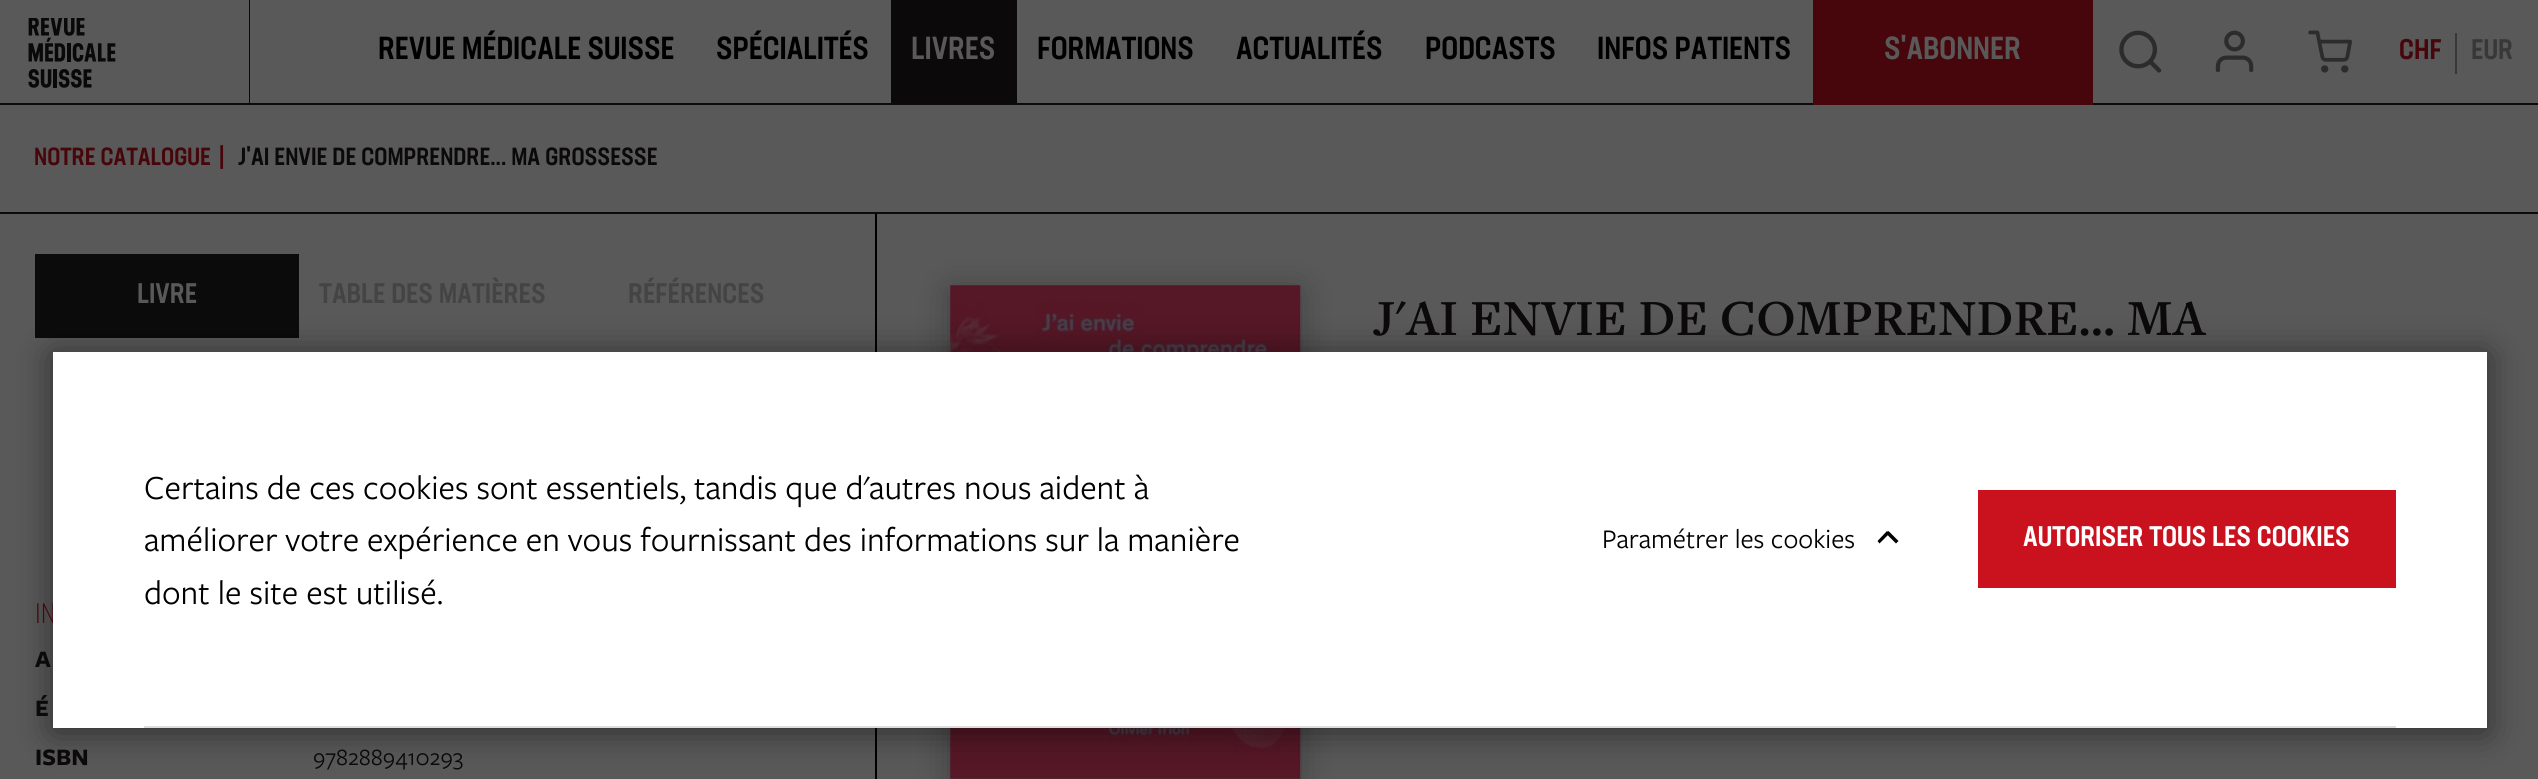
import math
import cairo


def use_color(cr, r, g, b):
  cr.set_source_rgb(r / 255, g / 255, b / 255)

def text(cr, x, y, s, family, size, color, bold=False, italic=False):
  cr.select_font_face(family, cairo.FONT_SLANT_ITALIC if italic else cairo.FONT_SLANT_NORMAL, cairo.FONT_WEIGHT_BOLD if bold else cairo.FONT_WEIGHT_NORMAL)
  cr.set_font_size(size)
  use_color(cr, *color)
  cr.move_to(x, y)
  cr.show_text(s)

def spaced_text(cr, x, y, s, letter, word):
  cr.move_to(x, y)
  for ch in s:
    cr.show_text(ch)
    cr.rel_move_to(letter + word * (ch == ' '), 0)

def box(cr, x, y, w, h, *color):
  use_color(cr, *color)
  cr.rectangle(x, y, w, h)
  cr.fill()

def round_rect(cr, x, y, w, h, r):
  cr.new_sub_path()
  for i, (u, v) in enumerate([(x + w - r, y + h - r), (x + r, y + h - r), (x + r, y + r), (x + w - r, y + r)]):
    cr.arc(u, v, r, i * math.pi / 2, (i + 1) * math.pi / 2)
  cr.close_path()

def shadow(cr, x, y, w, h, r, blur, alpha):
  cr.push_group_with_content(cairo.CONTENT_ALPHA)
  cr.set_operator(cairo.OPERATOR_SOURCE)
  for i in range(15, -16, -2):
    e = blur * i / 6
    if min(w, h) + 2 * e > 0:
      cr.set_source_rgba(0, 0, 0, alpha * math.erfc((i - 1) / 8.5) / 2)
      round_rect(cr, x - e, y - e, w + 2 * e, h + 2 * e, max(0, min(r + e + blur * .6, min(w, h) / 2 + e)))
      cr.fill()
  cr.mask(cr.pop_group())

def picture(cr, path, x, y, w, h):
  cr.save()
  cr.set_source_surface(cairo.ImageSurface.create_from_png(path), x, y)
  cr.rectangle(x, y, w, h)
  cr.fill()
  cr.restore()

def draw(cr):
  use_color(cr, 89, 89, 89)
  cr.paint()
  box(cr, 249, 0, 1, 105, 11, 11, 11)
  picture(cr, "img_01.png", 28, 18, 88, 70)
  box(cr, 891, 0, 126, 103, 11, 9, 10)
  box(cr, 0, 103, 2538, 2, 11, 11, 11)
  box(cr, 1813, 0, 280, 105, 71, 6, 11)
  picture(cr, "img_02.png", 2119, 30, 43, 43)
  picture(cr, "img_03.png", 2215, 30, 39, 43)
  picture(cr, "img_04.png", 2308, 30, 44, 43)
  box(cr, 2455, 33, 2, 41, 56, 56, 56)
  box(cr, 875, 212, 2, 567, 0, 0, 0)
  box(cr, 0, 212, 2538, 2, 11, 11, 11)
  box(cr, 35, 254, 264, 84, 11, 11, 11)
  use_color(cr, 0, 0, 0)
  shadow(cr, 950, 291, 350, 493, 0, 17.5, 0.29)
  picture(cr, "img_05.png", 950, 285, 351, 494)
  shadow(cr, 53, 355, 2434, 377, 0, 17.5, 0.5)
  text(cr, 378, 59, "REVUE MÉDICALE SUISSE", "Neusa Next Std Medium", 31.5, (0, 0, 0))
  text(cr, 716, 59, "SPÉCIALITÉS", "Neusa Next Std Medium", 31.5, (0, 0, 0))
  text(cr, 911, 59, "LIVRES", "Neusa Next Std Medium", 31.5, (89, 89, 89))
  text(cr, 1037, 59, "FORMATIONS", "Neusa Next Std Medium", 31.5, (0, 0, 0))
  text(cr, 1236, 59, "ACTUALITÉS", "Neusa Next Std Medium", 31.5, (0, 0, 0))
  text(cr, 1425, 59, "PODCASTS", "Neusa Next Std Medium", 31.5, (0, 0, 0))
  text(cr, 1597, 59, "INFOS PATIENTS", "Neusa Next Std Medium", 31.5, (0, 0, 0))
  text(cr, 1884, 59, "S'ABONNER", "Neusa Next Std Medium", 31.5, (89, 89, 89))
  text(cr, 2399, 59, "CHF", "Neusa Next Std Medium", 28, (71, 6, 11))
  text(cr, 2471, 59, "EUR", "Neusa Next Std Medium", 28, (56, 56, 56))
  text(cr, 34, 165, "NOTRE CATALOGUE", "Neusa Next Std Medium", 24.5, (71, 6, 11))
  text(cr, 219, 165, "|", "Neusa Next Std Medium", 24.5, (71, 6, 11))
  text(cr, 238, 165, "J'AI ENVIE DE COMPRENDRE... MA GROSSESSE", "Neusa Next Std Medium", 24.5, (11, 9, 10))
  text(cr, 137, 303, "LIVRE", "Neusa Next Std Medium", 28, (89, 89, 89))
  text(cr, 319, 303, "TABLE DES MATIÈRES", "Neusa Next Std Medium", 28, (68, 68, 69))
  text(cr, 628, 303, "RÉFÉRENCES", "Neusa Next Std Medium", 28, (68, 68, 69))
  text(cr, 35, 623, "IN", "Neusa Next Std Light", 28, (71, 6, 11))
  text(cr, 35, 667, "A", "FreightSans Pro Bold", 24.5, (11, 9, 10), bold=True)
  text(cr, 35, 716, "É", "FreightSans Pro Bold", 24.5, (11, 9, 10), bold=True)
  text(cr, 35, 765, "ISBN", "FreightSans Pro Bold", 24.5, (11, 9, 10), bold=True)
  text(cr, 313, 765, "9782889410293", "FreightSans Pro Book", 24.5, (11, 9, 10))
  text(cr, 1373, 335, "J'AI ENVIE DE COMPRENDRE... MA", "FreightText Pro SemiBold", 52.5, (11, 9, 10))
  box(cr, 53, 352, 2434, 376, 255, 255, 255)
  box(cr, 144, 726, 2252, 2, 221, 221, 221)
  text(cr, 144, 499, "Certains de ces cookies sont essentiels, tandis que d'autres nous aident à", "FreightSans Pro Book", 35, (0, 0, 0))
  spaced_text(cr, 144, 551, "améliorer votre expérience en vous fournissant des informations sur la manière", 0, -0.1)
  text(cr, 144, 604, "dont le site est utilisé.", "FreightSans Pro Book", 35, (0, 0, 0))
  text(cr, 1602, 548, "Paramétrer les cookies", "FreightSans Pro Book", 28, (0, 0, 0))
  cr.new_path()
  cr.move_to(1888.5, 531)
  cr.line_to(1898.5, 541)
  cr.line_to(1896, 543.5)
  cr.line_to(1886, 533.5)
  cr.close_path()
  cr.fill()
  cr.new_path()
  cr.move_to(1877.5, 541)
  cr.line_to(1887, 531)
  cr.line_to(1889.5, 533.5)
  cr.line_to(1879.5, 543.5)
  cr.close_path()
  cr.fill()
  box(cr, 1978, 490, 418, 98, 202, 18, 30)
  text(cr, 2023, 546, "AUTORISER TOUS LES COOKIES", "Neusa Next Std Medium", 28, (255, 255, 255))


surface = cairo.ImageSurface(cairo.FORMAT_RGB24, 2538, 779)
cr = cairo.Context(surface)
options = cairo.FontOptions()
options.set_hint_metrics(cairo.HINT_METRICS_OFF)
options.set_hint_style(cairo.HINT_STYLE_NONE)
cr.set_font_options(options)
cr.set_miter_limit(4)
draw(cr)
surface.write_to_png("out.png")
